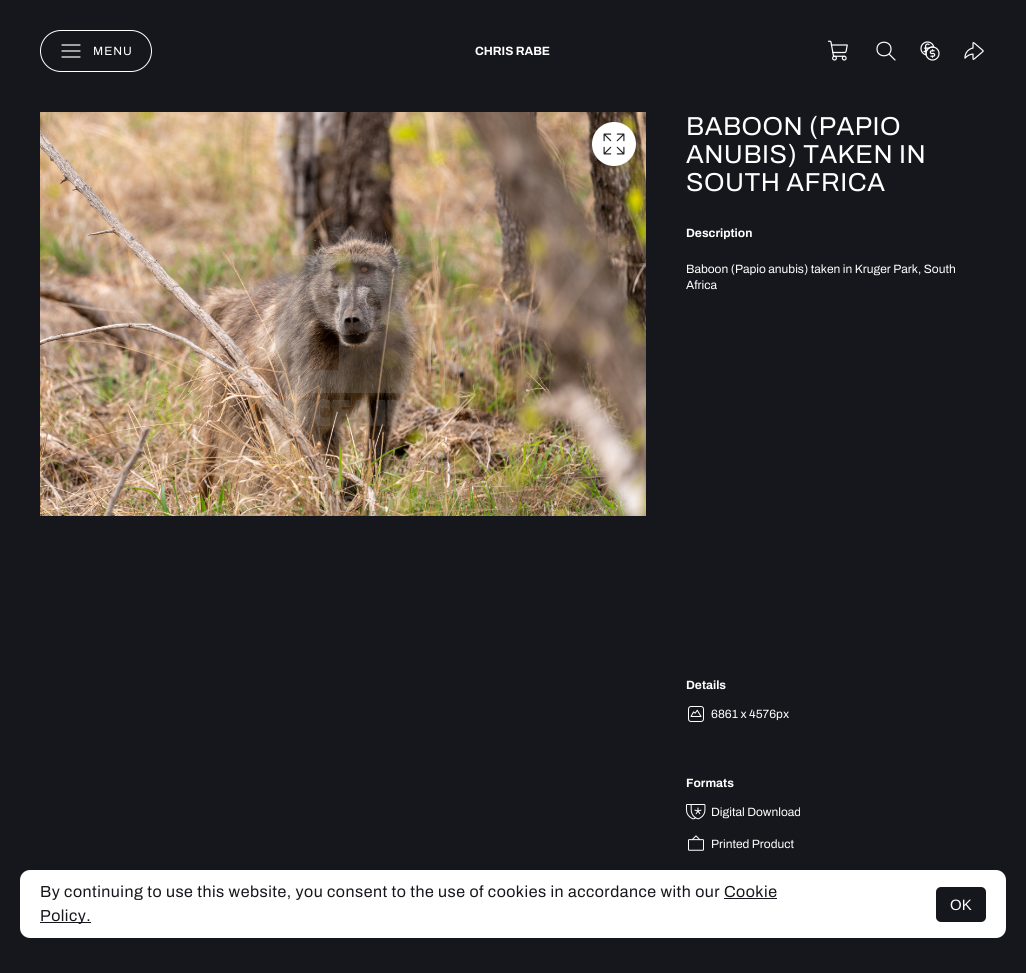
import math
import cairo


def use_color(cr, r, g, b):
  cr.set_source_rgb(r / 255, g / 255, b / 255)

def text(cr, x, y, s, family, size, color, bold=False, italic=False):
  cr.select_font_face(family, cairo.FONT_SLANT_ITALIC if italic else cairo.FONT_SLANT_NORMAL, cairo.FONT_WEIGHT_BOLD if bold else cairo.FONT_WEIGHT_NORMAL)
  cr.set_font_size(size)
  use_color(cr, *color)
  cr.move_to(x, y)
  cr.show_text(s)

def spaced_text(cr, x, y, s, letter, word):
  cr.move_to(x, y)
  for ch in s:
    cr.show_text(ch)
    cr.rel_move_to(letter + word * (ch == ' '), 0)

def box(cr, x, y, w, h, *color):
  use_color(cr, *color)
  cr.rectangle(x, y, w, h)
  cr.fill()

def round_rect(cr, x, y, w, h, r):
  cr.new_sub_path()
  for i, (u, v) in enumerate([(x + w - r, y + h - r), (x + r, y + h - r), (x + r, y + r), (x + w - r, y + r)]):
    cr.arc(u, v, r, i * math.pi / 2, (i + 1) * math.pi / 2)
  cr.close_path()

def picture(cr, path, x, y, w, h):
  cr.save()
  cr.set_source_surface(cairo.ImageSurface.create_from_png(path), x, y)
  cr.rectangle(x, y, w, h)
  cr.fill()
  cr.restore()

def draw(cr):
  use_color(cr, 22, 22, 29)
  cr.paint()
  round_rect(cr, 40.5, 30.5, 111, 41, 20.5)
  use_color(cr, 255, 255, 255)
  cr.set_line_width(1)
  cr.stroke()
  cr.new_path()
  cr.move_to(62, 51)
  cr.line_to(80, 51)
  cr.move_to(62, 45)
  cr.line_to(80, 45)
  cr.move_to(62, 57)
  cr.line_to(80, 57)
  cr.set_line_width(1.2)
  cr.set_line_cap(cairo.LINE_CAP_ROUND)
  cr.set_line_join(cairo.LINE_JOIN_ROUND)
  cr.stroke()
  picture(cr, "img_01.png", 827, 40, 21, 21)
  cr.new_path()
  cr.move_to(895, 60)
  cr.line_to(889, 54)
  cr.move_to(891, 49)
  cr.curve_to(891, 58, 877, 58, 877, 49)
  cr.curve_to(877, 40, 891, 40, 891, 49)
  cr.close_path()
  cr.stroke()
  picture(cr, "img_02.png", 920, 41, 20, 20)
  picture(cr, "img_03.png", 964, 42, 20, 18)
  picture(cr, "img_04.png", 40, 112, 606, 404)
  cr.arc(614, 144, 22, 0, 2 * math.pi)
  cr.fill()
  picture(cr, "img_05.png", 603, 133, 22, 22)
  picture(cr, "img_06.png", 688, 706, 16, 16)
  picture(cr, "img_07.png", 686, 804, 20, 16)
  picture(cr, "img_08.png", 688, 835, 16, 16)
  round_rect(cr, 20, 870, 986, 68, 10)
  cr.fill()
  box(cr, 724, 898, 53, 1, 22, 22, 29)
  box(cr, 40, 922, 51, 1, 22, 22, 29)
  round_rect(cr, 936, 887, 50, 35, 5)
  cr.fill()
  cr.select_font_face("Archivo")
  cr.set_font_size(12)
  use_color(cr, 255, 255, 255)
  spaced_text(cr, 93, 55, "MENU", 1, 0)
  text(cr, 475, 55, "CHRIS RABE", "Archivo", 12, (255, 255, 255), bold=True)
  cr.select_font_face("Archivo")
  cr.set_font_size(26)
  spaced_text(cr, 686, 135, "BABOON (PAPIO", 0.5, 0)
  spaced_text(cr, 686, 163, "ANUBIS) TAKEN IN", 0.5, 0)
  spaced_text(cr, 686, 191, "SOUTH AFRICA", 0.5, 0)
  text(cr, 686, 237, "Description", "Archivo", 12, (255, 255, 255), bold=True)
  text(cr, 686, 273, "Baboon (Papio anubis) taken in Kruger Park, South", "Archivo", 12, (255, 255, 255))
  text(cr, 686, 289, "Africa", "Archivo", 12, (255, 255, 255))
  text(cr, 686, 689, "Details", "Archivo", 12, (255, 255, 255), bold=True)
  text(cr, 711, 718, "6861 x 4576px", "Archivo", 12, (255, 255, 255))
  text(cr, 686, 787, "Formats", "Archivo", 12, (255, 255, 255), bold=True)
  text(cr, 711, 816, "Digital Download", "Archivo", 12, (255, 255, 255))
  text(cr, 711, 848, "Printed Product", "Archivo", 12, (255, 255, 255))
  cr.set_font_size(16)
  use_color(cr, 22, 22, 29)
  spaced_text(cr, 40, 897, "By continuing to use this website, you consent to the use of cookies in accordance with our Cookie", 0.5, 0)
  spaced_text(cr, 40, 921, "Policy.", 0.5, 0)
  text(cr, 950, 910, "OK", "Liberation Sans", 15, (255, 255, 255))


surface = cairo.ImageSurface(cairo.FORMAT_RGB24, 1026, 973)
cr = cairo.Context(surface)
options = cairo.FontOptions()
options.set_hint_metrics(cairo.HINT_METRICS_OFF)
options.set_hint_style(cairo.HINT_STYLE_NONE)
cr.set_font_options(options)
cr.set_miter_limit(4)
draw(cr)
surface.write_to_png("out.png")
